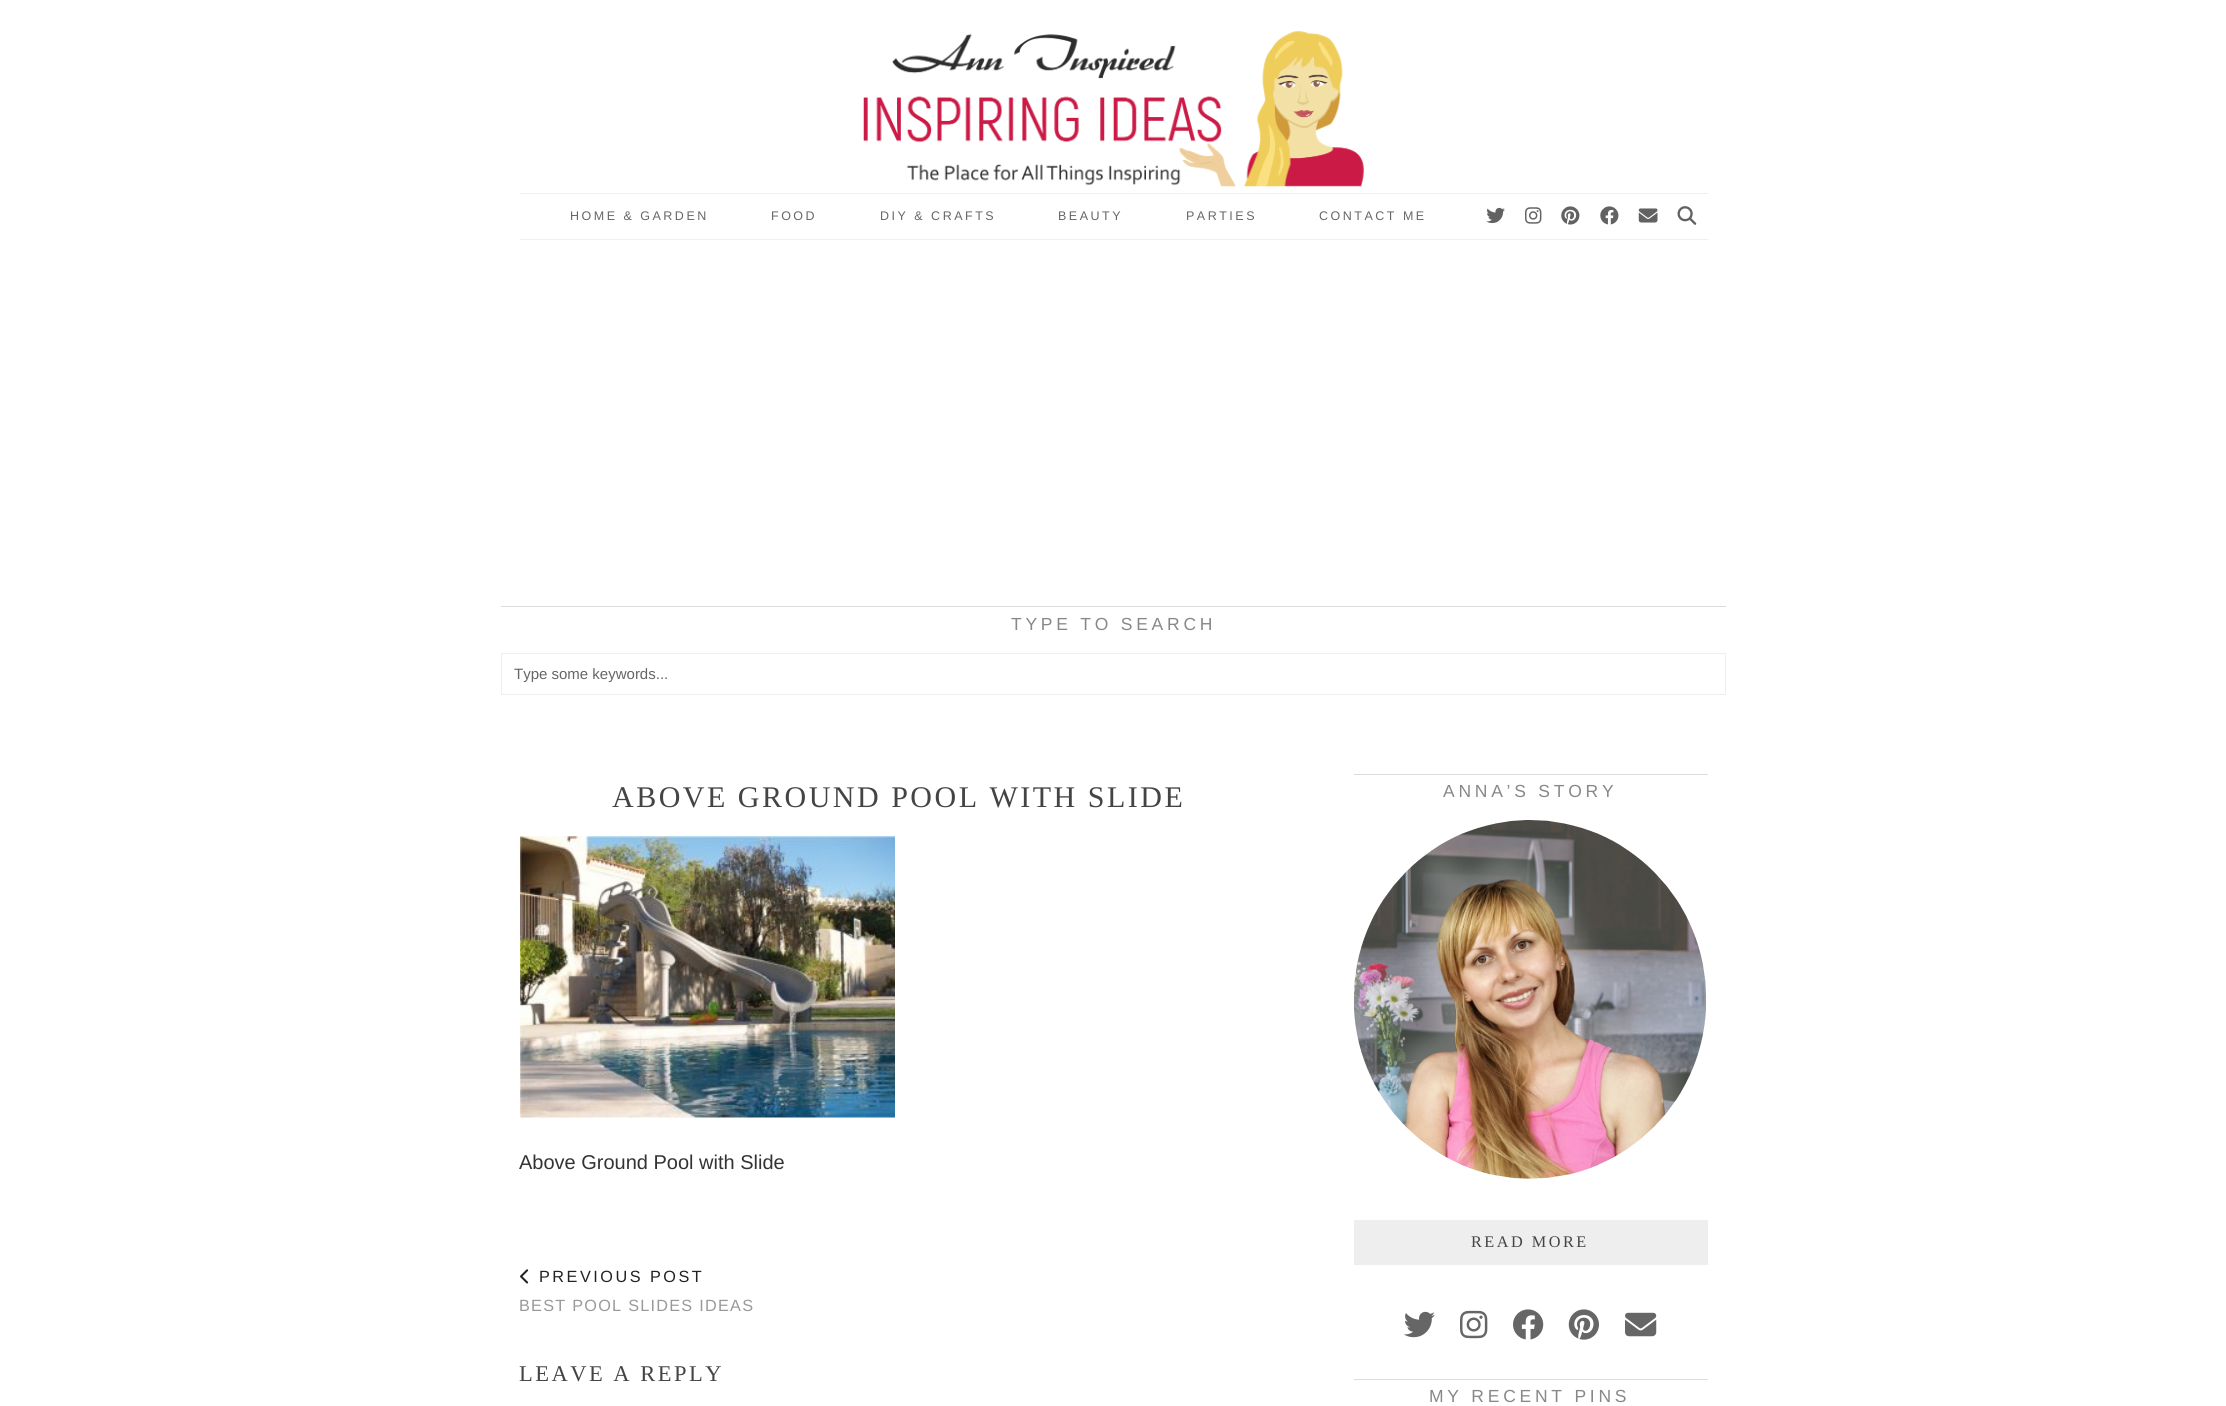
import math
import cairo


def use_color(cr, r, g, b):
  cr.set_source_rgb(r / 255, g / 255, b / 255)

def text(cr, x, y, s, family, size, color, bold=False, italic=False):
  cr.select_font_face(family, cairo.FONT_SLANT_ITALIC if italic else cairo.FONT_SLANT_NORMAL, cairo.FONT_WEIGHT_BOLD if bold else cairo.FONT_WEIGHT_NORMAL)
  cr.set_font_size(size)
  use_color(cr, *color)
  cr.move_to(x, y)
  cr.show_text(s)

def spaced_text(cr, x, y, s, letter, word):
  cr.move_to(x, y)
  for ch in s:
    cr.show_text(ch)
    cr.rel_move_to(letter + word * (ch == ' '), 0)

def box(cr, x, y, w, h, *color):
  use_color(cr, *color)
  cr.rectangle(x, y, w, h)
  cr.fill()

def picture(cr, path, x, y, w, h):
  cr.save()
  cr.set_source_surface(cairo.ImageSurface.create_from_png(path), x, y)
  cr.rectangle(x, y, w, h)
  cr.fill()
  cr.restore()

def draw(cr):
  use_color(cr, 255, 255, 255)
  cr.paint()
  picture(cr, "img_01.png", 863, 31, 501, 156)
  box(cr, 520, 193, 1188, 1, 239, 239, 239)
  box(cr, 520, 239, 1188, 1, 239, 239, 239)
  picture(cr, "img_02.png", 1486, 207, 19, 17)
  picture(cr, "img_03.png", 1525, 207, 17, 17)
  picture(cr, "img_04.png", 1561, 206, 19, 19)
  picture(cr, "img_05.png", 1600, 206, 19, 19)
  picture(cr, "img_06.png", 1638, 208, 20, 15)
  picture(cr, "img_07.png", 1677, 206, 20, 19)
  box(cr, 501, 606, 1225, 1, 221, 221, 221)
  cr.rectangle(501.5, 653.5, 1224, 41)
  use_color(cr, 238, 238, 238)
  cr.set_line_width(1)
  cr.stroke()
  picture(cr, "img_08.png", 520, 836, 375, 282)
  picture(cr, "img_09.png", 520, 1269, 9, 15)
  box(cr, 1354, 774, 354, 1, 221, 221, 221)
  picture(cr, "img_10.png", 1353, 820, 354, 359)
  box(cr, 1354, 1220, 354, 45, 238, 238, 238)
  picture(cr, "img_11.png", 1404, 1311, 31, 27)
  picture(cr, "img_12.png", 1460, 1310, 28, 29)
  picture(cr, "img_13.png", 1513, 1309, 31, 31)
  picture(cr, "img_14.png", 1568, 1309, 31, 31)
  picture(cr, "img_15.png", 1625, 1312, 32, 25)
  box(cr, 1354, 1379, 354, 1, 221, 221, 221)
  cr.select_font_face("Liberation Sans")
  cr.set_font_size(12.5)
  use_color(cr, 102, 102, 102)
  spaced_text(cr, 570, 220, "HOME & GARDEN", 2.5, 0)
  spaced_text(cr, 771, 220, "FOOD", 2.5, 0)
  spaced_text(cr, 880, 220, "DIY & CRAFTS", 2.5, 0)
  spaced_text(cr, 1058, 220, "BEAUTY", 2.5, 0)
  spaced_text(cr, 1186, 220, "PARTIES", 2.5, 0)
  spaced_text(cr, 1319, 220, "CONTACT ME", 2.5, 0)
  cr.set_font_size(17.5)
  use_color(cr, 136, 136, 136)
  spaced_text(cr, 1011, 630, "TYPE TO SEARCH", 3.75, 0)
  text(cr, 514, 679, "Type some keywords...", "Liberation Sans", 15, (102, 102, 102))
  cr.select_font_face("Liberation Serif")
  cr.set_font_size(30)
  use_color(cr, 68, 68, 68)
  spaced_text(cr, 612, 807, "ABOVE GROUND POOL WITH SLIDE", 2.5, 0)
  text(cr, 519, 1169, "Above Ground Pool with Slide", "Liberation Sans", 20, (51, 51, 51))
  cr.set_font_size(16.25)
  use_color(cr, 34, 34, 34)
  spaced_text(cr, 539, 1282, "PREVIOUS POST", 2.5, 0)
  use_color(cr, 153, 153, 153)
  spaced_text(cr, 519, 1311, "BEST POOL SLIDES IDEAS", 1.25, 0)
  cr.select_font_face("Liberation Serif")
  cr.set_font_size(22.5)
  use_color(cr, 68, 68, 68)
  spaced_text(cr, 519, 1381, "LEAVE A REPLY", 2.5, 0)
  cr.select_font_face("Liberation Sans")
  cr.set_font_size(17.5)
  use_color(cr, 136, 136, 136)
  spaced_text(cr, 1443, 797, "ANNA’S STORY", 3.75, 0)
  cr.select_font_face("Liberation Serif")
  cr.set_font_size(16.25)
  use_color(cr, 68, 68, 68)
  spaced_text(cr, 1471, 1247, "READ MORE", 2.5, 0)
  cr.select_font_face("Liberation Sans")
  cr.set_font_size(17.5)
  use_color(cr, 136, 136, 136)
  spaced_text(cr, 1429, 1402, "MY RECENT PINS", 3.75, 0)


surface = cairo.ImageSurface(cairo.FORMAT_RGB24, 2226, 1406)
cr = cairo.Context(surface)
options = cairo.FontOptions()
options.set_hint_metrics(cairo.HINT_METRICS_OFF)
options.set_hint_style(cairo.HINT_STYLE_NONE)
cr.set_font_options(options)
cr.set_miter_limit(4)
draw(cr)
surface.write_to_png("out.png")
